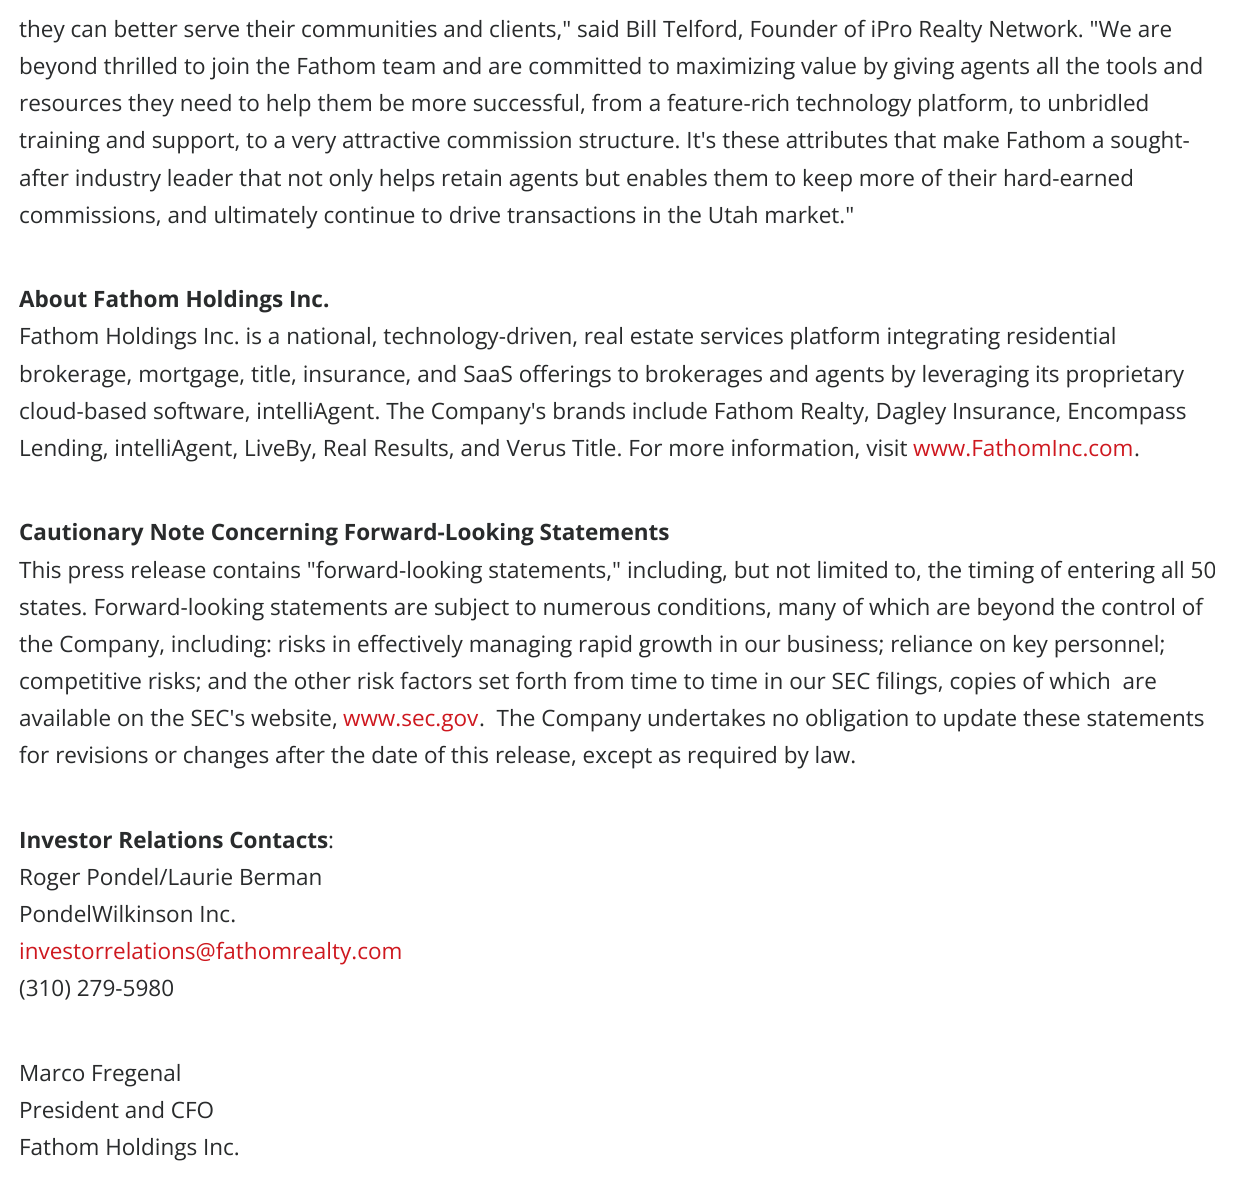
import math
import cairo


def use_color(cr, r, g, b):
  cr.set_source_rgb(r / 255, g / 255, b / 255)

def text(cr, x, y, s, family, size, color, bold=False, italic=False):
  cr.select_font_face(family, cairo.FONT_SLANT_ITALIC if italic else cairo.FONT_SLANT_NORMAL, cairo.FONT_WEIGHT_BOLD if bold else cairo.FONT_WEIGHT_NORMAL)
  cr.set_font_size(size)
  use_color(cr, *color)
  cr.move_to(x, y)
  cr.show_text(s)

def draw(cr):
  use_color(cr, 255, 255, 255)
  cr.paint()
  text(cr, 19, 37, "they can better serve their communities and clients,\" said Bill Telford, Founder of iPro Realty Network. \"We are", "Open Sans", 22.5, (41, 43, 44))
  text(cr, 19, 74, "beyond thrilled to join the Fathom team and are committed to maximizing value by giving agents all the tools and", "Open Sans", 22.5, (41, 43, 44))
  text(cr, 19, 111, "resources they need to help them be more successful, from a feature-rich technology platform, to unbridled", "Open Sans", 22.5, (41, 43, 44))
  text(cr, 19, 148, "training and support, to a very attractive commission structure. It's these attributes that make Fathom a sought-", "Open Sans", 22.5, (41, 43, 44))
  text(cr, 19, 186, "after industry leader that not only helps retain agents but enables them to keep more of their hard-earned", "Open Sans", 22.5, (41, 43, 44))
  text(cr, 19, 223, "commissions, and ultimately continue to drive transactions in the Utah market.\"", "Open Sans", 22.5, (41, 43, 44))
  text(cr, 19, 307, "About Fathom Holdings Inc.", "Open Sans", 22.5, (41, 43, 44), bold=True)
  text(cr, 19, 344, "Fathom Holdings Inc. is a national, technology-driven, real estate services platform integrating residential", "Open Sans", 22.5, (41, 43, 44))
  text(cr, 19, 382, "brokerage, mortgage, title, insurance, and SaaS offerings to brokerages and agents by leveraging its proprietary", "Open Sans", 22.5, (41, 43, 44))
  text(cr, 19, 419, "cloud-based software, intelliAgent. The Company's brands include Fathom Realty, Dagley Insurance, Encompass", "Open Sans", 22.5, (41, 43, 44))
  text(cr, 19, 456, "Lending, intelliAgent, LiveBy, Real Results, and Verus Title. For more information, visit", "Open Sans", 22.5, (41, 43, 44))
  text(cr, 913, 456, "www.FathomInc.com", "Open Sans", 22.5, (206, 24, 31))
  text(cr, 1134, 456, ".", "Open Sans", 22.5, (41, 43, 44))
  text(cr, 19, 540, "Cautionary Note Concerning Forward-Looking Statements", "Open Sans", 22.5, (41, 43, 44), bold=True)
  text(cr, 19, 578, "This press release contains \"forward-looking statements,\" including, but not limited to, the timing of entering all 50", "Open Sans", 22.5, (41, 43, 44))
  text(cr, 19, 615, "states. Forward-looking statements are subject to numerous conditions, many of which are beyond the control of", "Open Sans", 22.5, (41, 43, 44))
  text(cr, 19, 652, "the Company, including: risks in effectively managing rapid growth in our business; reliance on key personnel;", "Open Sans", 22.5, (41, 43, 44))
  text(cr, 19, 689, "competitive risks; and the other risk factors set forth from time to time in our SEC filings, copies of which  are", "Open Sans", 22.5, (41, 43, 44))
  text(cr, 19, 726, "available on the SEC's website,", "Open Sans", 22.5, (41, 43, 44))
  text(cr, 343, 726, "www.sec.gov", "Open Sans", 22.5, (206, 24, 31))
  text(cr, 479, 726, ".  The Company undertakes no obligation to update these statements", "Open Sans", 22.5, (41, 43, 44))
  text(cr, 19, 763, "for revisions or changes after the date of this release, except as required by law.", "Open Sans", 22.5, (41, 43, 44))
  text(cr, 19, 848, "Investor Relations Contacts", "Open Sans", 22.5, (41, 43, 44), bold=True)
  text(cr, 328, 848, ":", "Open Sans", 22.5, (41, 43, 44))
  text(cr, 19, 885, "Roger Pondel/Laurie Berman", "Open Sans", 22.5, (41, 43, 44))
  text(cr, 19, 922, "PondelWilkinson Inc.", "Open Sans", 22.5, (41, 43, 44))
  text(cr, 19, 959, "investorrelations@fathomrealty.com", "Open Sans", 22.5, (206, 24, 31))
  text(cr, 19, 996, "(310) 279-5980", "Open Sans", 22.5, (41, 43, 44))
  text(cr, 19, 1081, "Marco Fregenal", "Open Sans", 22.5, (41, 43, 44))
  text(cr, 19, 1118, "President and CFO", "Open Sans", 22.5, (41, 43, 44))
  text(cr, 19, 1155, "Fathom Holdings Inc.", "Open Sans", 22.5, (41, 43, 44))


surface = cairo.ImageSurface(cairo.FORMAT_RGB24, 1236, 1186)
cr = cairo.Context(surface)
options = cairo.FontOptions()
options.set_hint_metrics(cairo.HINT_METRICS_OFF)
options.set_hint_style(cairo.HINT_STYLE_NONE)
cr.set_font_options(options)
cr.set_miter_limit(4)
draw(cr)
surface.write_to_png("out.png")
